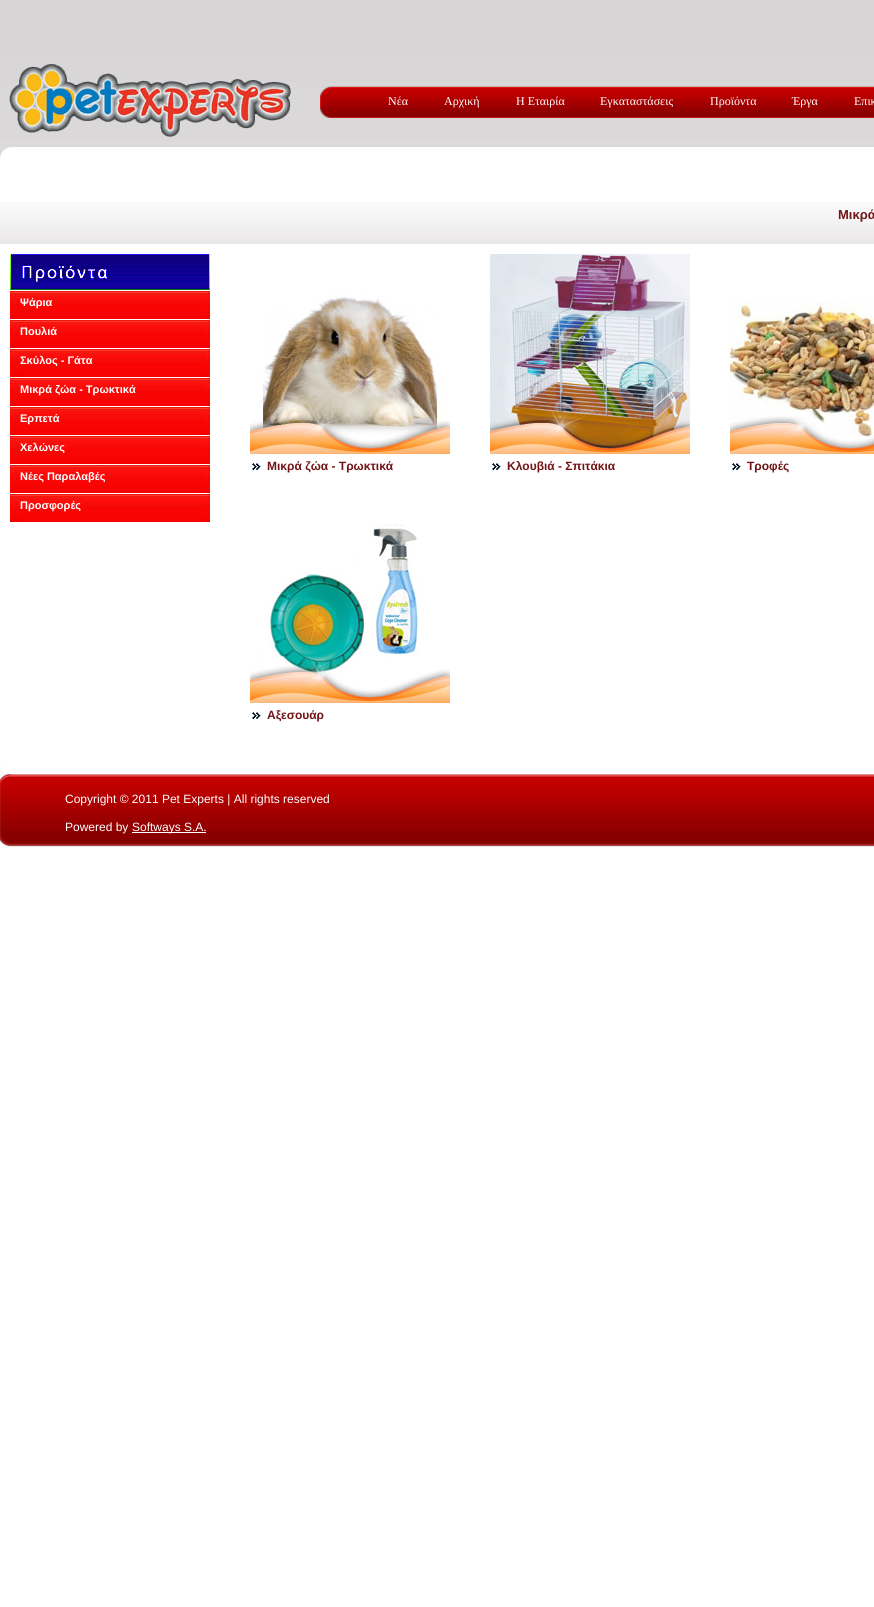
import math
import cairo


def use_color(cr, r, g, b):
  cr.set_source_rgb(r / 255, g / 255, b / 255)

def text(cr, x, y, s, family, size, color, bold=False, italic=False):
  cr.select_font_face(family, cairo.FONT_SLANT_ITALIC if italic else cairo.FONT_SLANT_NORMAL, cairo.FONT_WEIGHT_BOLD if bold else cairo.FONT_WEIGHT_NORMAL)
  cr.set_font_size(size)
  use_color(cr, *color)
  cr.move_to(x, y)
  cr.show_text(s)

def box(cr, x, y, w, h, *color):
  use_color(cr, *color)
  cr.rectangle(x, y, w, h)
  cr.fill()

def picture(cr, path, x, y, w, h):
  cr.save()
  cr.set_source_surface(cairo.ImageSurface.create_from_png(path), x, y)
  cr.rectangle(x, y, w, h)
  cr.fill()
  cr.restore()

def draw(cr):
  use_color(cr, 255, 255, 255)
  cr.paint()
  picture(cr, "img_01.png", 0, 0, 874, 776)
  picture(cr, "img_02.png", 0, 147, 874, 50)
  picture(cr, "img_03.png", 9, 64, 282, 73)
  picture(cr, "img_04.png", 320, 86, 554, 32)
  box(cr, 0, 197, 874, 555, 255, 255, 255)
  picture(cr, "img_05.png", 0, 202, 874, 42)
  picture(cr, "img_06.png", 10, 254, 200, 36)
  picture(cr, "img_07.png", 10, 291, 200, 28)
  picture(cr, "img_07.png", 10, 320, 200, 28)
  picture(cr, "img_07.png", 10, 349, 200, 28)
  picture(cr, "img_07.png", 10, 378, 200, 28)
  picture(cr, "img_07.png", 10, 407, 200, 28)
  picture(cr, "img_07.png", 10, 436, 200, 28)
  picture(cr, "img_07.png", 10, 465, 200, 28)
  picture(cr, "img_07.png", 10, 494, 200, 28)
  picture(cr, "img_08.png", 250, 294, 200, 160)
  picture(cr, "img_09.png", 252, 463, 9, 7)
  picture(cr, "img_10.png", 490, 254, 200, 200)
  picture(cr, "img_09.png", 492, 463, 9, 7)
  picture(cr, "img_11.png", 730, 302, 144, 152)
  picture(cr, "img_09.png", 732, 463, 9, 7)
  picture(cr, "img_12.png", 250, 524, 200, 179)
  picture(cr, "img_09.png", 252, 712, 9, 7)
  picture(cr, "img_13.png", 0, 752, 874, 95)
  box(cr, 132, 832, 74, 1, 255, 255, 255)
  text(cr, 388, 105, "Νέα", "Liberation Serif", 12, (255, 255, 255))
  text(cr, 444, 105, "Αρχική", "Liberation Serif", 12, (255, 255, 255))
  text(cr, 516, 105, "Η Εταιρία", "Liberation Serif", 12, (255, 255, 255))
  text(cr, 600, 105, "Εγκαταστάσεις", "Liberation Serif", 12, (255, 255, 255))
  text(cr, 710, 105, "Προϊόντα", "Liberation Serif", 12, (255, 255, 255))
  text(cr, 792, 105, "Έργα", "Liberation Serif", 12, (255, 255, 255))
  text(cr, 854, 105, "Επικ", "Liberation Serif", 12, (255, 255, 255))
  text(cr, 838, 219, "Μικρά", "Liberation Sans", 13, (114, 20, 21), bold=True)
  text(cr, 20, 306, "Ψάρια", "Liberation Sans", 11, (255, 255, 255), bold=True)
  text(cr, 20, 335, "Πουλιά", "Liberation Sans", 11, (255, 255, 255), bold=True)
  text(cr, 20, 364, "Σκύλος - Γάτα", "Liberation Sans", 11, (255, 255, 255), bold=True)
  text(cr, 20, 393, "Μικρά ζώα - Τρωκτικά", "Liberation Sans", 11, (255, 255, 255), bold=True)
  text(cr, 20, 422, "Ερπετά", "Liberation Sans", 11, (255, 255, 255), bold=True)
  text(cr, 20, 451, "Χελώνες", "Liberation Sans", 11, (255, 255, 255), bold=True)
  text(cr, 20, 480, "Νέες Παραλαβές", "Liberation Sans", 11, (255, 255, 255), bold=True)
  text(cr, 20, 509, "Προσφορές", "Liberation Sans", 11, (255, 255, 255), bold=True)
  text(cr, 267, 470, "Μικρά ζώα - Τρωκτικά", "Liberation Sans", 12, (114, 20, 21), bold=True)
  text(cr, 507, 470, "Kλουβιά - Σπιτάκια", "Liberation Sans", 12, (114, 20, 21), bold=True)
  text(cr, 747, 470, "Τροφές", "Liberation Sans", 12, (114, 20, 21), bold=True)
  text(cr, 267, 719, "Αξεσουάρ", "Liberation Sans", 12, (114, 20, 21), bold=True)
  text(cr, 65, 803, "Copyright © 2011 Pet Experts | All rights reserved", "Liberation Sans", 12, (255, 255, 255))
  text(cr, 65, 831, "Powered by", "Liberation Sans", 12, (255, 255, 255))
  text(cr, 132, 831, "Softways S.A.", "Liberation Sans", 12, (255, 255, 255))


surface = cairo.ImageSurface(cairo.FORMAT_RGB24, 874, 1607)
cr = cairo.Context(surface)
options = cairo.FontOptions()
options.set_hint_metrics(cairo.HINT_METRICS_OFF)
options.set_hint_style(cairo.HINT_STYLE_NONE)
cr.set_font_options(options)
cr.set_miter_limit(4)
draw(cr)
surface.write_to_png("out.png")
